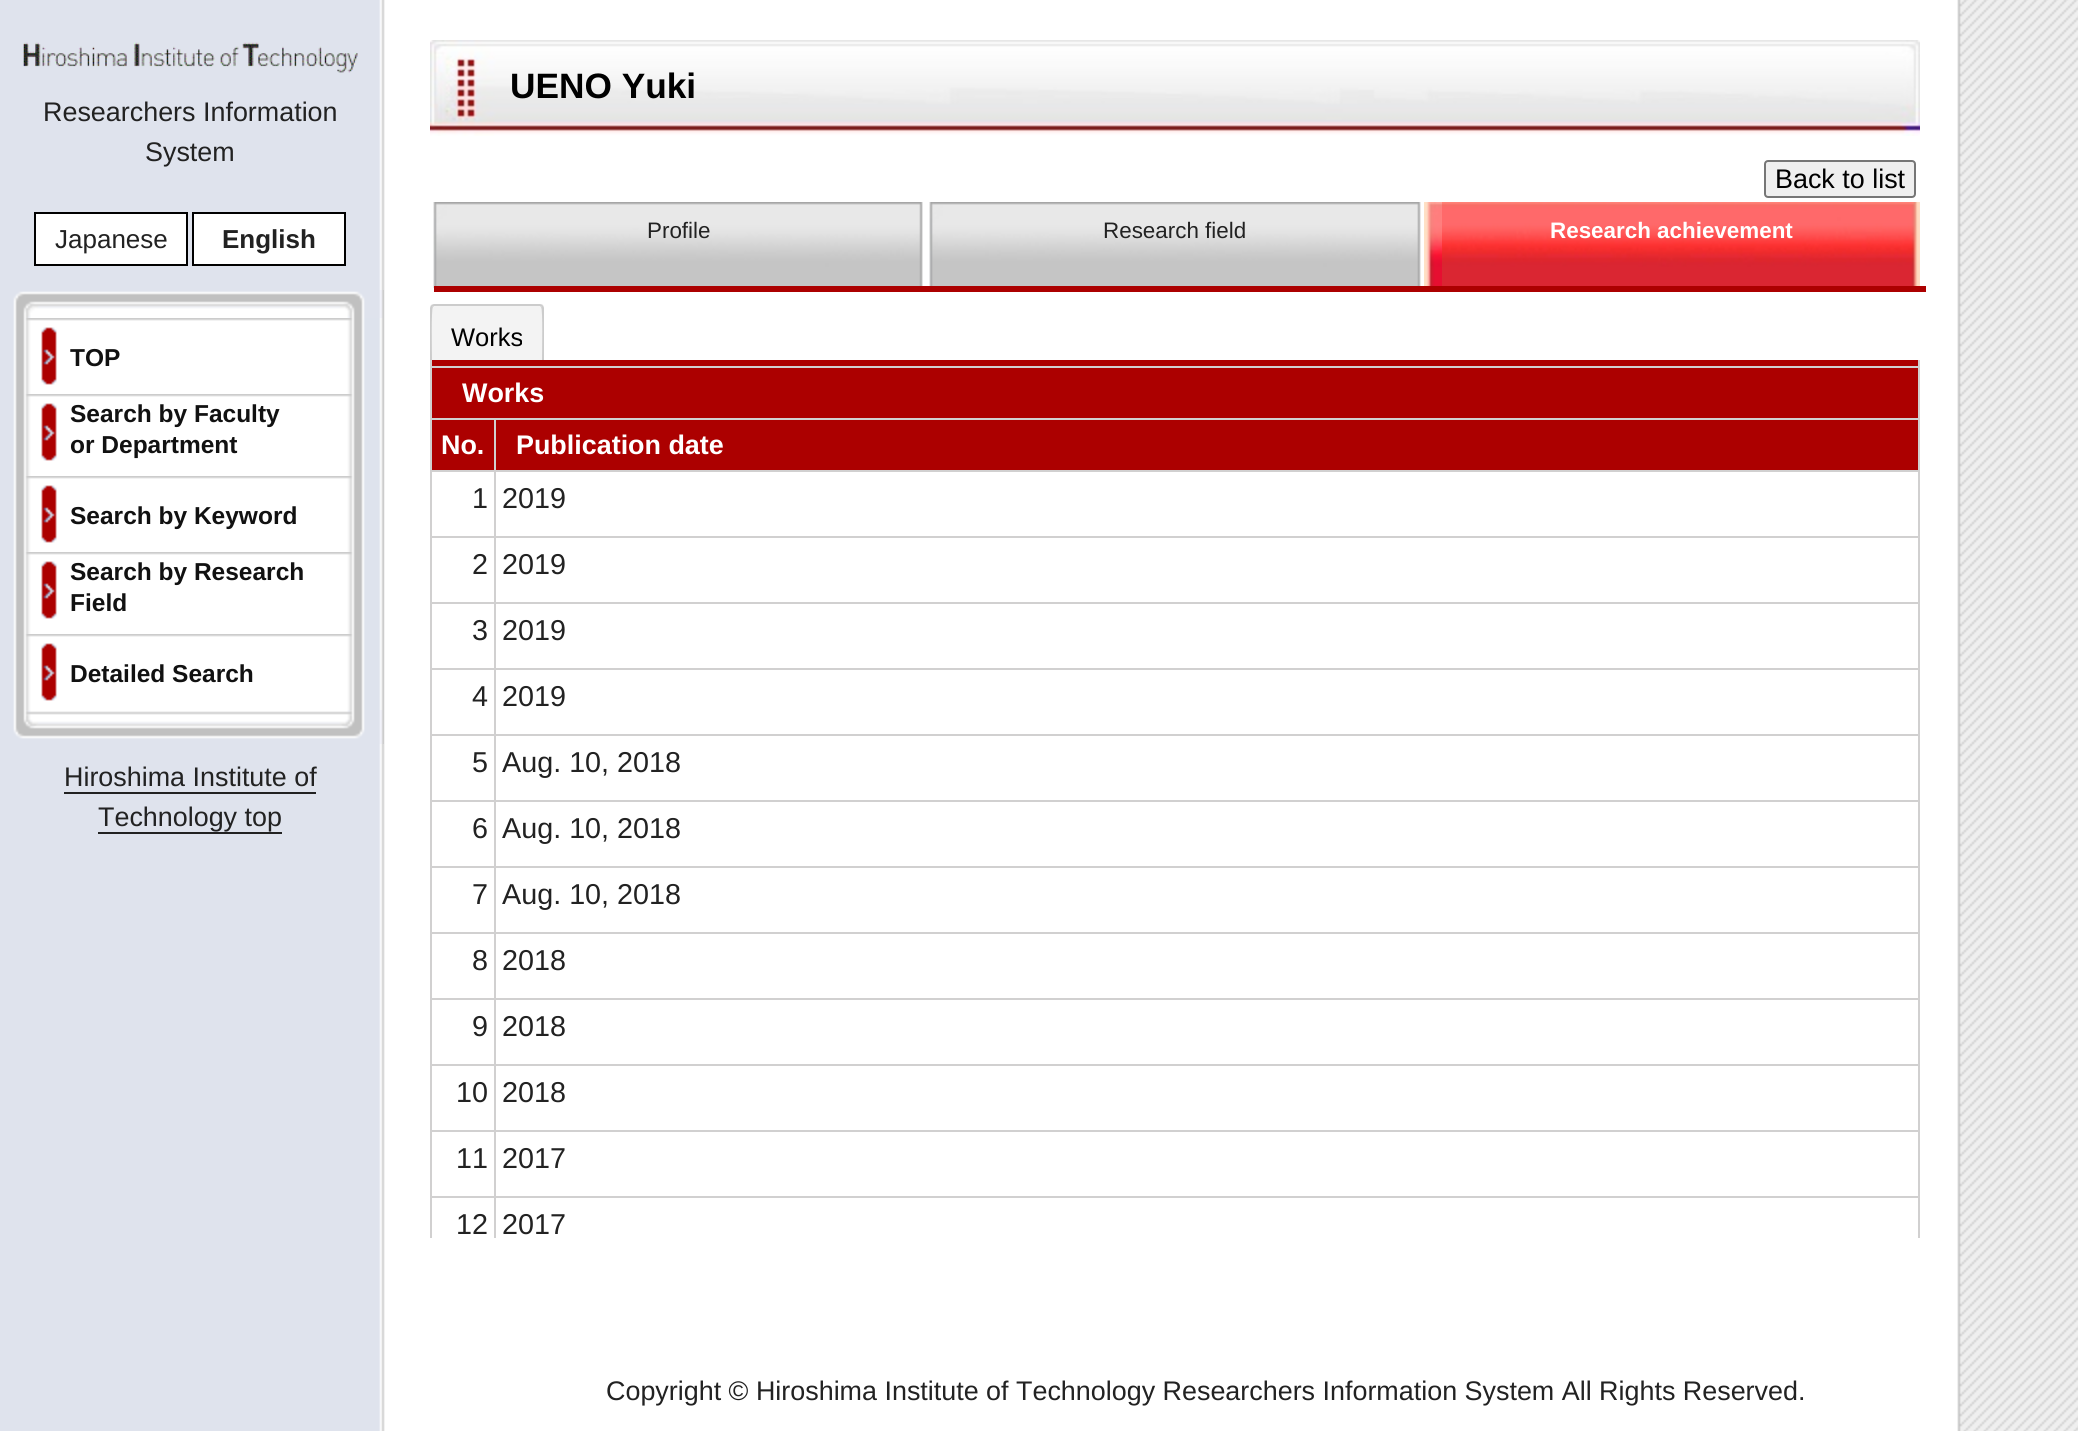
import math
import cairo


def use_color(cr, r, g, b):
  cr.set_source_rgb(r / 255, g / 255, b / 255)

def text(cr, x, y, s, family, size, color, bold=False, italic=False):
  cr.select_font_face(family, cairo.FONT_SLANT_ITALIC if italic else cairo.FONT_SLANT_NORMAL, cairo.FONT_WEIGHT_BOLD if bold else cairo.FONT_WEIGHT_NORMAL)
  cr.set_font_size(size)
  use_color(cr, *color)
  cr.move_to(x, y)
  cr.show_text(s)

def box(cr, x, y, w, h, *color):
  use_color(cr, *color)
  cr.rectangle(x, y, w, h)
  cr.fill()

def round_rect(cr, x, y, w, h, r):
  cr.new_sub_path()
  for i, (u, v) in enumerate([(x + w - r, y + h - r), (x + r, y + h - r), (x + r, y + r), (x + w - r, y + r)]):
    cr.arc(u, v, r, i * math.pi / 2, (i + 1) * math.pi / 2)
  cr.close_path()

def picture(cr, path, x, y, w, h):
  cr.save()
  cr.set_source_surface(cairo.ImageSurface.create_from_png(path), x, y)
  cr.rectangle(x, y, w, h)
  cr.fill()
  cr.restore()

def draw(cr):
  use_color(cr, 255, 255, 255)
  cr.paint()
  picture(cr, "img_01.png", 0, 0, 2078, 1431)
  picture(cr, "img_02.png", 23, 42, 335, 31)
  use_color(cr, 255, 255, 255)
  cr.rectangle(35, 213, 152, 52)
  cr.fill_preserve()
  use_color(cr, 0, 0, 0)
  cr.stroke()
  use_color(cr, 255, 255, 255)
  cr.rectangle(193, 213, 152, 52)
  cr.fill_preserve()
  use_color(cr, 0, 0, 0)
  cr.stroke()
  picture(cr, "img_03.png", 13, 290, 371, 28)
  picture(cr, "img_04.png", 13, 318, 371, 76)
  picture(cr, "img_05.png", 13, 394, 371, 82)
  picture(cr, "img_04.png", 13, 476, 371, 76)
  picture(cr, "img_05.png", 13, 552, 371, 82)
  picture(cr, "img_04.png", 13, 634, 371, 76)
  picture(cr, "img_06.png", 13, 710, 371, 34)
  box(cr, 64, 792, 252, 2, 34, 34, 34)
  box(cr, 98, 832, 184, 2, 34, 34, 34)
  picture(cr, "img_07.png", 430, 40, 1490, 96)
  use_color(cr, 239, 239, 239)
  round_rect(cr, 1765, 161, 150, 36, 3)
  cr.fill_preserve()
  use_color(cr, 118, 118, 118)
  cr.stroke()
  picture(cr, "img_08.png", 433, 202, 21, 86)
  picture(cr, "img_09.png", 454, 202, 469, 84)
  picture(cr, "img_10.png", 929, 202, 21, 84)
  picture(cr, "img_11.png", 950, 202, 471, 84)
  picture(cr, "img_12.png", 1424, 202, 18, 84)
  picture(cr, "img_13.png", 1442, 202, 478, 84)
  box(cr, 434, 286, 1492, 6, 172, 0, 0)
  use_color(cr, 243, 243, 243)
  cr.new_path()
  cr.move_to(434, 304)
  cr.line_to(540, 304)
  cr.curve_to(542, 304, 544, 306, 544, 308)
  cr.line_to(544, 362)
  cr.line_to(430, 362)
  cr.line_to(430, 308)
  cr.curve_to(430, 306, 432, 304, 434, 304)
  cr.close_path()
  cr.fill()
  use_color(cr, 204, 204, 204)
  cr.new_path()
  cr.move_to(434, 304)
  cr.line_to(431, 305)
  cr.line_to(433, 307)
  cr.line_to(434, 306)
  cr.line_to(540, 306)
  cr.line_to(541, 307)
  cr.line_to(543, 305)
  cr.line_to(540, 304)
  cr.close_path()
  cr.fill()
  cr.new_path()
  cr.move_to(544, 362)
  cr.line_to(544, 308)
  cr.line_to(543, 305)
  cr.line_to(541, 307)
  cr.curve_to(543, 308, 542, 354, 542, 360)
  cr.close_path()
  cr.fill()
  cr.new_path()
  cr.move_to(430, 362)
  cr.line_to(432, 360)
  cr.curve_to(432, 354, 431, 308, 433, 307)
  cr.line_to(431, 305)
  cr.line_to(430, 308)
  cr.close_path()
  cr.fill()
  box(cr, 430, 360, 1490, 6, 172, 0, 0)
  box(cr, 1918, 360, 2, 6, 209, 208, 208)
  box(cr, 430, 360, 2, 6, 209, 208, 208)
  box(cr, 430, 366, 1490, 2, 209, 208, 208)
  box(cr, 1918, 366, 2, 872, 209, 208, 208)
  box(cr, 432, 368, 1486, 50, 172, 0, 0)
  box(cr, 430, 418, 1488, 2, 209, 208, 208)
  box(cr, 430, 368, 2, 52, 209, 208, 208)
  box(cr, 432, 420, 62, 50, 172, 0, 0)
  box(cr, 430, 470, 1488, 2, 209, 208, 208)
  box(cr, 430, 420, 2, 52, 209, 208, 208)
  box(cr, 496, 420, 1422, 50, 172, 0, 0)
  box(cr, 494, 420, 2, 52, 209, 208, 208)
  box(cr, 430, 536, 1488, 2, 209, 208, 208)
  box(cr, 430, 472, 2, 66, 209, 208, 208)
  box(cr, 494, 472, 2, 66, 209, 208, 208)
  box(cr, 430, 602, 1488, 2, 209, 208, 208)
  box(cr, 430, 538, 2, 66, 209, 208, 208)
  box(cr, 494, 538, 2, 66, 209, 208, 208)
  box(cr, 430, 668, 1488, 2, 209, 208, 208)
  box(cr, 430, 604, 2, 66, 209, 208, 208)
  box(cr, 494, 604, 2, 66, 209, 208, 208)
  box(cr, 430, 734, 1488, 2, 209, 208, 208)
  box(cr, 430, 670, 2, 66, 209, 208, 208)
  box(cr, 494, 670, 2, 66, 209, 208, 208)
  box(cr, 430, 800, 1488, 2, 209, 208, 208)
  box(cr, 430, 736, 2, 66, 209, 208, 208)
  box(cr, 494, 736, 2, 66, 209, 208, 208)
  box(cr, 430, 866, 1488, 2, 209, 208, 208)
  box(cr, 430, 802, 2, 66, 209, 208, 208)
  box(cr, 494, 802, 2, 66, 209, 208, 208)
  box(cr, 430, 932, 1488, 2, 209, 208, 208)
  box(cr, 430, 868, 2, 66, 209, 208, 208)
  box(cr, 494, 868, 2, 66, 209, 208, 208)
  box(cr, 430, 998, 1488, 2, 209, 208, 208)
  box(cr, 430, 934, 2, 66, 209, 208, 208)
  box(cr, 494, 934, 2, 66, 209, 208, 208)
  box(cr, 430, 1064, 1488, 2, 209, 208, 208)
  box(cr, 430, 1000, 2, 66, 209, 208, 208)
  box(cr, 494, 1000, 2, 66, 209, 208, 208)
  box(cr, 430, 1130, 1488, 2, 209, 208, 208)
  box(cr, 430, 1066, 2, 66, 209, 208, 208)
  box(cr, 494, 1066, 2, 66, 209, 208, 208)
  box(cr, 430, 1196, 1488, 2, 209, 208, 208)
  box(cr, 430, 1132, 2, 106, 209, 208, 208)
  box(cr, 494, 1132, 2, 106, 209, 208, 208)
  text(cr, 43, 121, "Researchers Information", "Liberation Sans", 26.9, (34, 34, 34))
  text(cr, 145, 161, "System", "Liberation Sans", 26.9, (34, 34, 34))
  text(cr, 55, 248, "Japanese", "Liberation Sans", 26, (34, 34, 34))
  text(cr, 222, 248, "English", "Liberation Sans", 26, (34, 34, 34), bold=True)
  text(cr, 70, 366, "TOP", "Liberation Sans", 24.5, (17, 17, 17), bold=True)
  text(cr, 70, 422, "Search by Faculty", "Liberation Sans", 24.5, (17, 17, 17), bold=True)
  text(cr, 70, 453, "or Department", "Liberation Sans", 24.5, (17, 17, 17), bold=True)
  text(cr, 70, 524, "Search by Keyword", "Liberation Sans", 24.5, (17, 17, 17), bold=True)
  text(cr, 70, 580, "Search by Research", "Liberation Sans", 24.5, (17, 17, 17), bold=True)
  text(cr, 70, 611, "Field", "Liberation Sans", 24.5, (17, 17, 17), bold=True)
  text(cr, 70, 682, "Detailed Search", "Liberation Sans", 24.5, (17, 17, 17), bold=True)
  text(cr, 64, 786, "Hiroshima Institute of", "Liberation Sans", 26.9, (34, 34, 34))
  text(cr, 98, 826, "Technology top", "Liberation Sans", 26.9, (34, 34, 34))
  text(cr, 510, 98, "UENO Yuki", "Liberation Sans", 35.25, (0, 0, 0), bold=True)
  text(cr, 1775, 188, "Back to list", "Liberation Sans", 26.9, (0, 0, 0))
  text(cr, 647, 238, "Profile", "Liberation Sans", 22.4, (34, 34, 34))
  text(cr, 1103, 238, "Research field", "Liberation Sans", 22.4, (34, 34, 34))
  text(cr, 1550, 238, "Research achievement", "Liberation Sans", 22.4, (255, 255, 255), bold=True)
  text(cr, 451, 346, "Works", "Liberation Sans", 25.5, (0, 0, 0))
  text(cr, 462, 402, "Works", "Liberation Sans", 26.9, (255, 255, 255), bold=True)
  text(cr, 441, 454, "No.", "Liberation Sans", 26.9, (255, 255, 255), bold=True)
  text(cr, 516, 454, "Publication date", "Liberation Sans", 26.9, (255, 255, 255), bold=True)
  text(cr, 472, 508, "1", "Liberation Sans", 28.75, (34, 34, 34))
  text(cr, 502, 508, "2019", "Liberation Sans", 28.75, (34, 34, 34))
  text(cr, 472, 574, "2", "Liberation Sans", 28.75, (34, 34, 34))
  text(cr, 502, 574, "2019", "Liberation Sans", 28.75, (34, 34, 34))
  text(cr, 472, 640, "3", "Liberation Sans", 28.75, (34, 34, 34))
  text(cr, 502, 640, "2019", "Liberation Sans", 28.75, (34, 34, 34))
  text(cr, 472, 706, "4", "Liberation Sans", 28.75, (34, 34, 34))
  text(cr, 502, 706, "2019", "Liberation Sans", 28.75, (34, 34, 34))
  text(cr, 472, 772, "5", "Liberation Sans", 28.75, (34, 34, 34))
  text(cr, 502, 772, "Aug. 10, 2018", "Liberation Sans", 28.75, (34, 34, 34))
  text(cr, 472, 838, "6", "Liberation Sans", 28.75, (34, 34, 34))
  text(cr, 502, 838, "Aug. 10, 2018", "Liberation Sans", 28.75, (34, 34, 34))
  text(cr, 472, 904, "7", "Liberation Sans", 28.75, (34, 34, 34))
  text(cr, 502, 904, "Aug. 10, 2018", "Liberation Sans", 28.75, (34, 34, 34))
  text(cr, 472, 970, "8", "Liberation Sans", 28.75, (34, 34, 34))
  text(cr, 502, 970, "2018", "Liberation Sans", 28.75, (34, 34, 34))
  text(cr, 472, 1036, "9", "Liberation Sans", 28.75, (34, 34, 34))
  text(cr, 502, 1036, "2018", "Liberation Sans", 28.75, (34, 34, 34))
  text(cr, 456, 1102, "10", "Liberation Sans", 28.75, (34, 34, 34))
  text(cr, 502, 1102, "2018", "Liberation Sans", 28.75, (34, 34, 34))
  text(cr, 456, 1168, "11", "Liberation Sans", 28.75, (34, 34, 34))
  text(cr, 502, 1168, "2017", "Liberation Sans", 28.75, (34, 34, 34))
  text(cr, 456, 1234, "12", "Liberation Sans", 28.75, (34, 34, 34))
  text(cr, 502, 1234, "2017", "Liberation Sans", 28.75, (34, 34, 34))
  text(cr, 606, 1400, "Copyright © Hiroshima Institute of Technology Researchers Information System All Rights Reserved.", "Liberation Sans", 26.9, (34, 34, 34))


surface = cairo.ImageSurface(cairo.FORMAT_RGB24, 2078, 1431)
cr = cairo.Context(surface)
options = cairo.FontOptions()
options.set_hint_metrics(cairo.HINT_METRICS_OFF)
options.set_hint_style(cairo.HINT_STYLE_NONE)
cr.set_font_options(options)
cr.set_miter_limit(4)
draw(cr)
surface.write_to_png("out.png")
